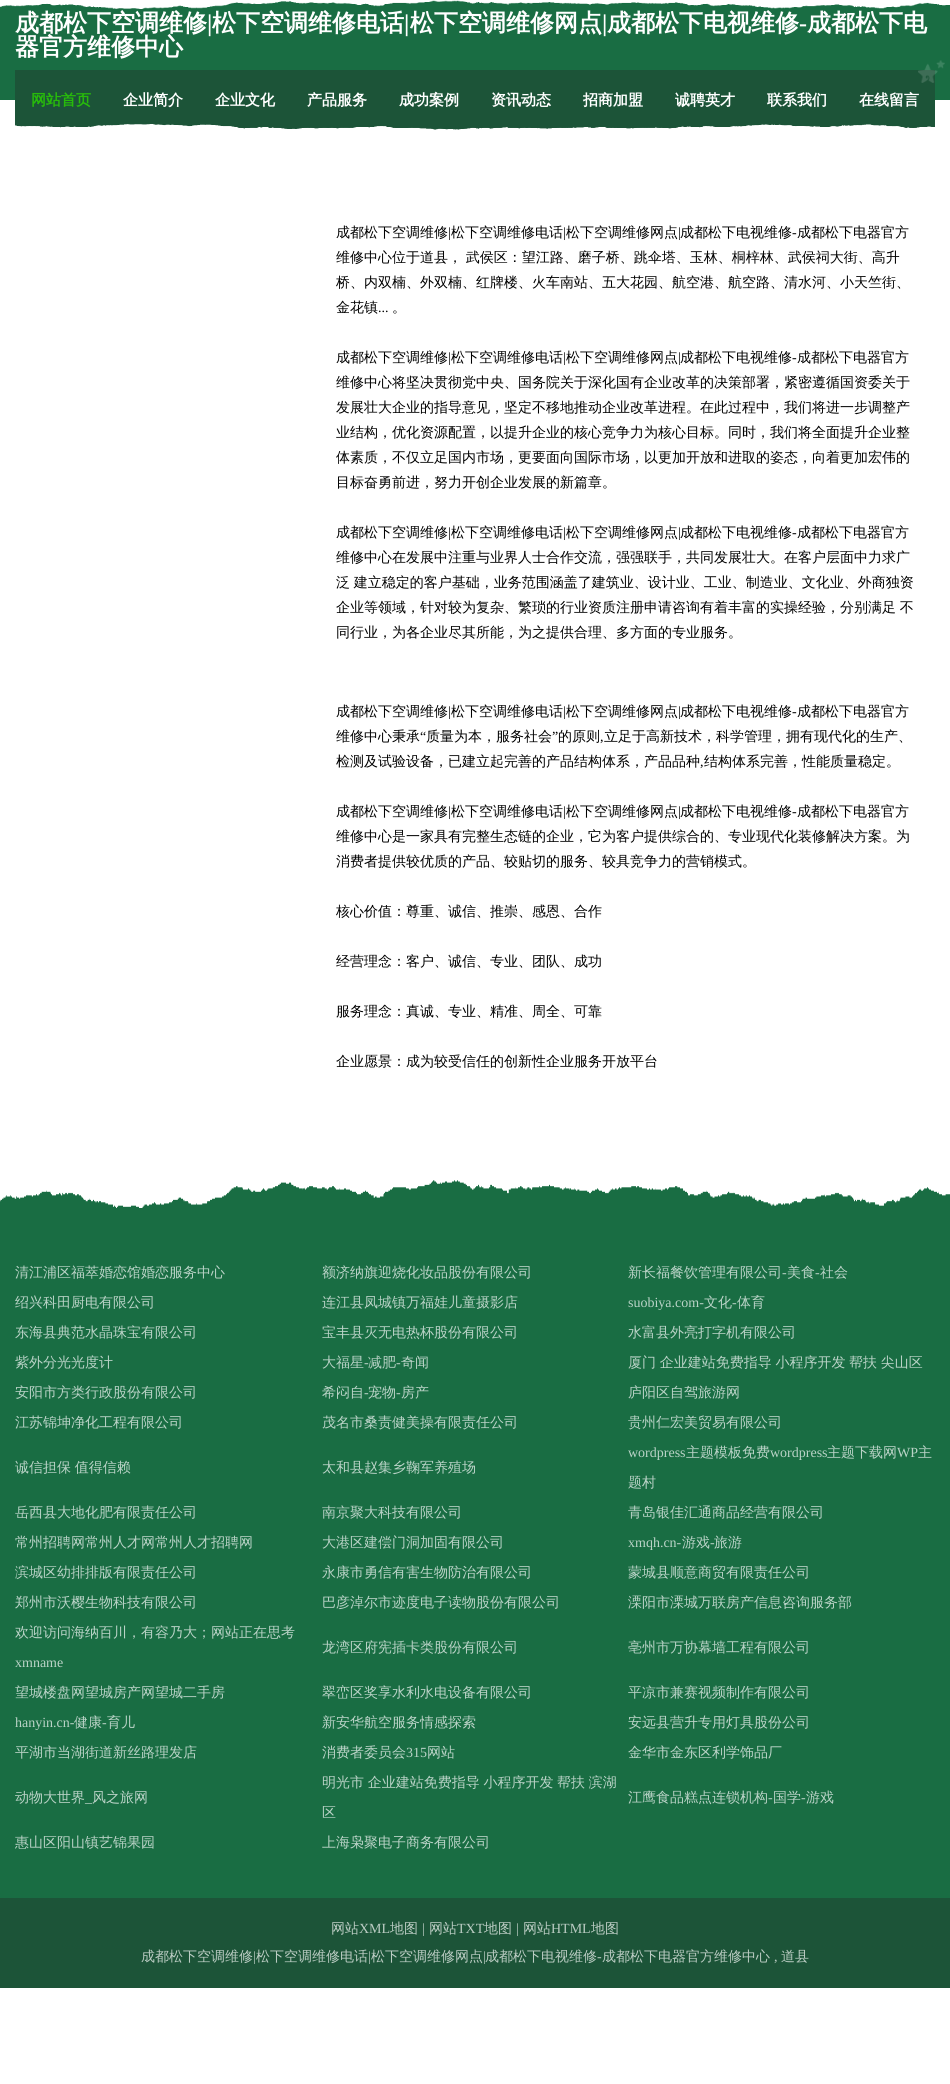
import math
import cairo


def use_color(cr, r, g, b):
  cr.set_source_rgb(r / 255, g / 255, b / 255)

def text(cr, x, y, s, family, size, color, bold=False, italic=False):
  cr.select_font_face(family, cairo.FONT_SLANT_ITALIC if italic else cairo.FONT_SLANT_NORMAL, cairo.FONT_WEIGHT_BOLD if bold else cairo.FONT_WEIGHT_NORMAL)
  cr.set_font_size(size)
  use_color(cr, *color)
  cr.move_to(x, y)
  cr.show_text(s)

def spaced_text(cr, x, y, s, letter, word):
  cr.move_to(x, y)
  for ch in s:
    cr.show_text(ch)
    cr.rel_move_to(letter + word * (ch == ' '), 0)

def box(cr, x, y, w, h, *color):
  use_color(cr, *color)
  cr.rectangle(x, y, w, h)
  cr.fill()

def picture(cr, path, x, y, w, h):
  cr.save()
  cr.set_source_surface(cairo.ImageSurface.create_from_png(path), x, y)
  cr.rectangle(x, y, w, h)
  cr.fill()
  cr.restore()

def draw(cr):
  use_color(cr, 255, 255, 255)
  cr.paint()
  box(cr, 0, 0, 950, 100, 25, 109, 67)
  picture(cr, "img_01.png", 0, 0, 950, 9)
  box(cr, 15, 70, 920, 60, 28, 84, 56)
  picture(cr, "img_02.png", 918, 60, 27, 23)
  picture(cr, "img_03.png", 15, 124, 920, 6)
  box(cr, 0, 1180, 950, 718, 25, 109, 67)
  picture(cr, "img_04.png", 0, 1178, 950, 30)
  box(cr, 0, 1898, 950, 90, 28, 84, 56)
  text(cr, 15, 31, "成都松下空调维修", "WenQuanYi Zen Hei", 24, (255, 255, 255), bold=True)
  text(cr, 207, 31, "|", "Liberation Serif", 24, (255, 255, 255), bold=True)
  text(cr, 212, 31, "松下空调维修电话", "WenQuanYi Zen Hei", 24, (255, 255, 255), bold=True)
  text(cr, 404, 31, "|", "Liberation Serif", 24, (255, 255, 255), bold=True)
  text(cr, 410, 31, "松下空调维修网点", "WenQuanYi Zen Hei", 24, (255, 255, 255), bold=True)
  text(cr, 602, 31, "|", "Liberation Serif", 24, (255, 255, 255), bold=True)
  text(cr, 607, 31, "成都松下电视维修", "WenQuanYi Zen Hei", 24, (255, 255, 255), bold=True)
  text(cr, 799, 31, "-", "Liberation Serif", 24, (255, 255, 255), bold=True)
  text(cr, 807, 31, "成都松下电", "WenQuanYi Zen Hei", 24, (255, 255, 255), bold=True)
  text(cr, 15, 55, "器官方维修中心", "WenQuanYi Zen Hei", 24, (255, 255, 255), bold=True)
  text(cr, 31, 105, "网站首页", "WenQuanYi Zen Hei", 15, (39, 187, 10), bold=True)
  text(cr, 123, 105, "企业简介", "WenQuanYi Zen Hei", 15, (255, 255, 255), bold=True)
  text(cr, 215, 105, "企业文化", "WenQuanYi Zen Hei", 15, (255, 255, 255), bold=True)
  text(cr, 307, 105, "产品服务", "WenQuanYi Zen Hei", 15, (255, 255, 255), bold=True)
  text(cr, 399, 105, "成功案例", "WenQuanYi Zen Hei", 15, (255, 255, 255), bold=True)
  text(cr, 491, 105, "资讯动态", "WenQuanYi Zen Hei", 15, (255, 255, 255), bold=True)
  text(cr, 583, 105, "招商加盟", "WenQuanYi Zen Hei", 15, (255, 255, 255), bold=True)
  text(cr, 675, 105, "诚聘英才", "WenQuanYi Zen Hei", 15, (255, 255, 255), bold=True)
  text(cr, 767, 105, "联系我们", "WenQuanYi Zen Hei", 15, (255, 255, 255), bold=True)
  text(cr, 859, 105, "在线留言", "WenQuanYi Zen Hei", 15, (255, 255, 255), bold=True)
  text(cr, 336, 237, "成都松下空调维修", "WenQuanYi Zen Hei Medium", 14, (0, 0, 0))
  text(cr, 448, 237, "|", "Liberation Serif", 14, (0, 0, 0))
  text(cr, 451, 237, "松下空调维修电话", "WenQuanYi Zen Hei Medium", 14, (0, 0, 0))
  text(cr, 563, 237, "|", "Liberation Serif", 14, (0, 0, 0))
  text(cr, 566, 237, "松下空调维修网点", "WenQuanYi Zen Hei Medium", 14, (0, 0, 0))
  text(cr, 678, 237, "|", "Liberation Serif", 14, (0, 0, 0))
  text(cr, 680, 237, "成都松下电视维修", "WenQuanYi Zen Hei Medium", 14, (0, 0, 0))
  text(cr, 792, 237, "-", "Liberation Serif", 14, (0, 0, 0))
  text(cr, 797, 237, "成都松下电器官方", "WenQuanYi Zen Hei Medium", 14, (0, 0, 0))
  spaced_text(cr, 336, 262, "维修中心位于道县， 武侯区：望江路、磨子桥、跳伞塔、玉林、桐梓林、武侯祠大街、高升", 0, -0.5)
  text(cr, 336, 287, "桥、内双楠、外双楠、红牌楼、火车南站、五大花园、航空港、航空路、清水河、小天竺街、", "WenQuanYi Zen Hei Medium", 14, (0, 0, 0))
  text(cr, 336, 312, "金花镇", "WenQuanYi Zen Hei Medium", 14, (0, 0, 0))
  text(cr, 378, 312, "...", "Liberation Serif", 14, (0, 0, 0))
  text(cr, 392, 312, "。", "WenQuanYi Zen Hei Medium", 14, (0, 0, 0))
  text(cr, 336, 362, "成都松下空调维修", "WenQuanYi Zen Hei Medium", 14, (0, 0, 0))
  text(cr, 448, 362, "|", "Liberation Serif", 14, (0, 0, 0))
  text(cr, 451, 362, "松下空调维修电话", "WenQuanYi Zen Hei Medium", 14, (0, 0, 0))
  text(cr, 563, 362, "|", "Liberation Serif", 14, (0, 0, 0))
  text(cr, 566, 362, "松下空调维修网点", "WenQuanYi Zen Hei Medium", 14, (0, 0, 0))
  text(cr, 678, 362, "|", "Liberation Serif", 14, (0, 0, 0))
  text(cr, 680, 362, "成都松下电视维修", "WenQuanYi Zen Hei Medium", 14, (0, 0, 0))
  text(cr, 792, 362, "-", "Liberation Serif", 14, (0, 0, 0))
  text(cr, 797, 362, "成都松下电器官方", "WenQuanYi Zen Hei Medium", 14, (0, 0, 0))
  text(cr, 336, 387, "维修中心将坚决贯彻党中央、国务院关于深化国有企业改革的决策部署，紧密遵循国资委关于", "WenQuanYi Zen Hei Medium", 14, (0, 0, 0))
  text(cr, 336, 412, "发展壮大企业的指导意见，坚定不移地推动企业改革进程。在此过程中，我们将进一步调整产", "WenQuanYi Zen Hei Medium", 14, (0, 0, 0))
  text(cr, 336, 437, "业结构，优化资源配置，以提升企业的核心竞争力为核心目标。同时，我们将全面提升企业整", "WenQuanYi Zen Hei Medium", 14, (0, 0, 0))
  text(cr, 336, 462, "体素质，不仅立足国内市场，更要面向国际市场，以更加开放和进取的姿态，向着更加宏伟的", "WenQuanYi Zen Hei Medium", 14, (0, 0, 0))
  text(cr, 336, 487, "目标奋勇前进，努力开创企业发展的新篇章。", "WenQuanYi Zen Hei Medium", 14, (0, 0, 0))
  text(cr, 336, 537, "成都松下空调维修", "WenQuanYi Zen Hei Medium", 14, (0, 0, 0))
  text(cr, 448, 537, "|", "Liberation Serif", 14, (0, 0, 0))
  text(cr, 451, 537, "松下空调维修电话", "WenQuanYi Zen Hei Medium", 14, (0, 0, 0))
  text(cr, 563, 537, "|", "Liberation Serif", 14, (0, 0, 0))
  text(cr, 566, 537, "松下空调维修网点", "WenQuanYi Zen Hei Medium", 14, (0, 0, 0))
  text(cr, 678, 537, "|", "Liberation Serif", 14, (0, 0, 0))
  text(cr, 680, 537, "成都松下电视维修", "WenQuanYi Zen Hei Medium", 14, (0, 0, 0))
  text(cr, 792, 537, "-", "Liberation Serif", 14, (0, 0, 0))
  text(cr, 797, 537, "成都松下电器官方", "WenQuanYi Zen Hei Medium", 14, (0, 0, 0))
  text(cr, 336, 562, "维修中心在发展中注重与业界人士合作交流，强强联手，共同发展壮大。在客户层面中力求广", "WenQuanYi Zen Hei Medium", 14, (0, 0, 0))
  spaced_text(cr, 336, 587, "泛 建立稳定的客户基础，业务范围涵盖了建筑业、设计业、工业、制造业、文化业、外商独资", 0, -0.5)
  spaced_text(cr, 336, 612, "企业等领域，针对较为复杂、繁琐的行业资质注册申请咨询有着丰富的实操经验，分别满足 不", 0, -0.5)
  text(cr, 336, 637, "同行业，为各企业尽其所能，为之提供合理、多方面的专业服务。", "WenQuanYi Zen Hei Medium", 14, (0, 0, 0))
  text(cr, 336, 716, "成都松下空调维修", "WenQuanYi Zen Hei Medium", 14, (0, 0, 0))
  text(cr, 448, 716, "|", "Liberation Serif", 14, (0, 0, 0))
  text(cr, 451, 716, "松下空调维修电话", "WenQuanYi Zen Hei Medium", 14, (0, 0, 0))
  text(cr, 563, 716, "|", "Liberation Serif", 14, (0, 0, 0))
  text(cr, 566, 716, "松下空调维修网点", "WenQuanYi Zen Hei Medium", 14, (0, 0, 0))
  text(cr, 678, 716, "|", "Liberation Serif", 14, (0, 0, 0))
  text(cr, 680, 716, "成都松下电视维修", "WenQuanYi Zen Hei Medium", 14, (0, 0, 0))
  text(cr, 792, 716, "-", "Liberation Serif", 14, (0, 0, 0))
  text(cr, 797, 716, "成都松下电器官方", "WenQuanYi Zen Hei Medium", 14, (0, 0, 0))
  text(cr, 336, 741, "维修中心秉承", "WenQuanYi Zen Hei Medium", 14, (0, 0, 0))
  text(cr, 420, 741, "“", "Liberation Serif", 14, (0, 0, 0))
  text(cr, 426, 741, "质量为本，服务社会", "WenQuanYi Zen Hei Medium", 14, (0, 0, 0))
  text(cr, 552, 741, "”", "Liberation Serif", 14, (0, 0, 0))
  text(cr, 558, 741, "的原则", "WenQuanYi Zen Hei Medium", 14, (0, 0, 0))
  text(cr, 604, 741, "立足于高新技术，科学管理，拥有现代化的生产、", "WenQuanYi Zen Hei Medium", 14, (0, 0, 0))
  text(cr, 600, 741, ",", "Liberation Serif", 14, (0, 0, 0))
  text(cr, 336, 766, "检测及试验设备，已建立起完善的产品结构体系，产品品种", "WenQuanYi Zen Hei Medium", 14, (0, 0, 0))
  text(cr, 700, 766, ",", "Liberation Serif", 14, (0, 0, 0))
  text(cr, 704, 766, "结构体系完善，性能质量稳定。", "WenQuanYi Zen Hei Medium", 14, (0, 0, 0))
  text(cr, 336, 816, "成都松下空调维修", "WenQuanYi Zen Hei Medium", 14, (0, 0, 0))
  text(cr, 448, 816, "|", "Liberation Serif", 14, (0, 0, 0))
  text(cr, 451, 816, "松下空调维修电话", "WenQuanYi Zen Hei Medium", 14, (0, 0, 0))
  text(cr, 563, 816, "|", "Liberation Serif", 14, (0, 0, 0))
  text(cr, 566, 816, "松下空调维修网点", "WenQuanYi Zen Hei Medium", 14, (0, 0, 0))
  text(cr, 678, 816, "|", "Liberation Serif", 14, (0, 0, 0))
  text(cr, 680, 816, "成都松下电视维修", "WenQuanYi Zen Hei Medium", 14, (0, 0, 0))
  text(cr, 792, 816, "-", "Liberation Serif", 14, (0, 0, 0))
  text(cr, 797, 816, "成都松下电器官方", "WenQuanYi Zen Hei Medium", 14, (0, 0, 0))
  text(cr, 336, 841, "维修中心是一家具有完整生态链的企业，它为客户提供综合的、专业现代化装修解决方案。为", "WenQuanYi Zen Hei Medium", 14, (0, 0, 0))
  text(cr, 336, 866, "消费者提供较优质的产品、较贴切的服务、较具竞争力的营销模式。", "WenQuanYi Zen Hei Medium", 14, (0, 0, 0))
  text(cr, 336, 916, "核心价值：尊重、诚信、推崇、感恩、合作", "WenQuanYi Zen Hei Medium", 14, (0, 0, 0))
  text(cr, 336, 966, "经营理念：客户、诚信、专业、团队、成功", "WenQuanYi Zen Hei Medium", 14, (0, 0, 0))
  text(cr, 336, 1016, "服务理念：真诚、专业、精准、周全、可靠", "WenQuanYi Zen Hei Medium", 14, (0, 0, 0))
  text(cr, 336, 1066, "企业愿景：成为较受信任的创新性企业服务开放平台", "WenQuanYi Zen Hei Medium", 14, (0, 0, 0))
  text(cr, 15, 1277, "清江浦区福萃婚恋馆婚恋服务中心", "WenQuanYi Zen Hei Medium", 14, (186, 211, 199))
  text(cr, 322, 1277, "额济纳旗迎烧化妆品股份有限公司", "WenQuanYi Zen Hei Medium", 14, (186, 211, 199))
  text(cr, 628, 1277, "新长福餐饮管理有限公司", "WenQuanYi Zen Hei Medium", 14, (186, 211, 199))
  text(cr, 782, 1277, "-", "Liberation Serif", 14, (186, 211, 199))
  text(cr, 787, 1277, "美食", "WenQuanYi Zen Hei Medium", 14, (186, 211, 199))
  text(cr, 815, 1277, "-", "Liberation Serif", 14, (186, 211, 199))
  text(cr, 820, 1277, "社会", "WenQuanYi Zen Hei Medium", 14, (186, 211, 199))
  text(cr, 15, 1307, "绍兴科田厨电有限公司", "WenQuanYi Zen Hei Medium", 14, (186, 211, 199))
  text(cr, 322, 1307, "连江县凤城镇万福娃儿童摄影店", "WenQuanYi Zen Hei Medium", 14, (186, 211, 199))
  text(cr, 628, 1307, "suobiya.com-", "Liberation Serif", 14, (186, 211, 199))
  text(cr, 704, 1307, "文化", "WenQuanYi Zen Hei Medium", 14, (186, 211, 199))
  text(cr, 732, 1307, "-", "Liberation Serif", 14, (186, 211, 199))
  text(cr, 737, 1307, "体育", "WenQuanYi Zen Hei Medium", 14, (186, 211, 199))
  text(cr, 15, 1337, "东海县典范水晶珠宝有限公司", "WenQuanYi Zen Hei Medium", 14, (186, 211, 199))
  text(cr, 322, 1337, "宝丰县灭无电热杯股份有限公司", "WenQuanYi Zen Hei Medium", 14, (186, 211, 199))
  text(cr, 628, 1337, "水富县外亮打字机有限公司", "WenQuanYi Zen Hei Medium", 14, (186, 211, 199))
  text(cr, 15, 1367, "紫外分光光度计", "WenQuanYi Zen Hei Medium", 14, (186, 211, 199))
  text(cr, 322, 1367, "大福星", "WenQuanYi Zen Hei Medium", 14, (186, 211, 199))
  text(cr, 364, 1367, "-", "Liberation Serif", 14, (186, 211, 199))
  text(cr, 368, 1367, "减肥", "WenQuanYi Zen Hei Medium", 14, (186, 211, 199))
  text(cr, 396, 1367, "-", "Liberation Serif", 14, (186, 211, 199))
  text(cr, 401, 1367, "奇闻", "WenQuanYi Zen Hei Medium", 14, (186, 211, 199))
  spaced_text(cr, 628, 1367, "厦门 企业建站免费指导 小程序开发 帮扶 尖山区", 0, -0.5)
  text(cr, 15, 1397, "安阳市方类行政股份有限公司", "WenQuanYi Zen Hei Medium", 14, (186, 211, 199))
  text(cr, 322, 1397, "希闷自", "WenQuanYi Zen Hei Medium", 14, (186, 211, 199))
  text(cr, 364, 1397, "-", "Liberation Serif", 14, (186, 211, 199))
  text(cr, 368, 1397, "宠物", "WenQuanYi Zen Hei Medium", 14, (186, 211, 199))
  text(cr, 396, 1397, "-", "Liberation Serif", 14, (186, 211, 199))
  text(cr, 401, 1397, "房产", "WenQuanYi Zen Hei Medium", 14, (186, 211, 199))
  text(cr, 628, 1397, "庐阳区自驾旅游网", "WenQuanYi Zen Hei Medium", 14, (186, 211, 199))
  text(cr, 15, 1427, "江苏锦坤净化工程有限公司", "WenQuanYi Zen Hei Medium", 14, (186, 211, 199))
  text(cr, 322, 1427, "茂名市桑责健美操有限责任公司", "WenQuanYi Zen Hei Medium", 14, (186, 211, 199))
  text(cr, 628, 1427, "贵州仁宏美贸易有限公司", "WenQuanYi Zen Hei Medium", 14, (186, 211, 199))
  spaced_text(cr, 15, 1472, "诚信担保 值得信赖", 0, -0.5)
  text(cr, 322, 1472, "太和县赵集乡鞠军养殖场", "WenQuanYi Zen Hei Medium", 14, (186, 211, 199))
  text(cr, 628, 1457, "wordpress", "Liberation Serif", 14, (186, 211, 199))
  text(cr, 686, 1457, "主题模板免费", "WenQuanYi Zen Hei Medium", 14, (186, 211, 199))
  text(cr, 770, 1457, "wordpress", "Liberation Serif", 14, (186, 211, 199))
  text(cr, 827, 1457, "主题下载网", "WenQuanYi Zen Hei Medium", 14, (186, 211, 199))
  text(cr, 897, 1457, "WP", "Liberation Serif", 14, (186, 211, 199))
  text(cr, 918, 1457, "主", "WenQuanYi Zen Hei Medium", 14, (186, 211, 199))
  text(cr, 628, 1487, "题村", "WenQuanYi Zen Hei Medium", 14, (186, 211, 199))
  text(cr, 15, 1517, "岳西县大地化肥有限责任公司", "WenQuanYi Zen Hei Medium", 14, (186, 211, 199))
  text(cr, 322, 1517, "南京聚大科技有限公司", "WenQuanYi Zen Hei Medium", 14, (186, 211, 199))
  text(cr, 628, 1517, "青岛银佳汇通商品经营有限公司", "WenQuanYi Zen Hei Medium", 14, (186, 211, 199))
  text(cr, 15, 1547, "常州招聘网常州人才网常州人才招聘网", "WenQuanYi Zen Hei Medium", 14, (186, 211, 199))
  text(cr, 322, 1547, "大港区建偿门洞加固有限公司", "WenQuanYi Zen Hei Medium", 14, (186, 211, 199))
  text(cr, 628, 1547, "xmqh.cn-", "Liberation Serif", 14, (186, 211, 199))
  text(cr, 682, 1547, "游戏", "WenQuanYi Zen Hei Medium", 14, (186, 211, 199))
  text(cr, 710, 1547, "-", "Liberation Serif", 14, (186, 211, 199))
  text(cr, 714, 1547, "旅游", "WenQuanYi Zen Hei Medium", 14, (186, 211, 199))
  text(cr, 15, 1577, "滨城区幼排排版有限责任公司", "WenQuanYi Zen Hei Medium", 14, (186, 211, 199))
  text(cr, 322, 1577, "永康市勇信有害生物防治有限公司", "WenQuanYi Zen Hei Medium", 14, (186, 211, 199))
  text(cr, 628, 1577, "蒙城县顺意商贸有限责任公司", "WenQuanYi Zen Hei Medium", 14, (186, 211, 199))
  text(cr, 15, 1607, "郑州市沃樱生物科技有限公司", "WenQuanYi Zen Hei Medium", 14, (186, 211, 199))
  text(cr, 322, 1607, "巴彦淖尔市迹度电子读物股份有限公司", "WenQuanYi Zen Hei Medium", 14, (186, 211, 199))
  text(cr, 628, 1607, "溧阳市溧城万联房产信息咨询服务部", "WenQuanYi Zen Hei Medium", 14, (186, 211, 199))
  text(cr, 15, 1637, "欢迎访问海纳百川，有容乃大；网站正在思考", "WenQuanYi Zen Hei Medium", 14, (186, 211, 199))
  text(cr, 15, 1667, "xmname", "Liberation Serif", 14, (186, 211, 199))
  text(cr, 322, 1652, "龙湾区府宪插卡类股份有限公司", "WenQuanYi Zen Hei Medium", 14, (186, 211, 199))
  text(cr, 628, 1652, "亳州市万协幕墙工程有限公司", "WenQuanYi Zen Hei Medium", 14, (186, 211, 199))
  text(cr, 15, 1697, "望城楼盘网望城房产网望城二手房", "WenQuanYi Zen Hei Medium", 14, (186, 211, 199))
  text(cr, 322, 1697, "翠峦区奖享水利水电设备有限公司", "WenQuanYi Zen Hei Medium", 14, (186, 211, 199))
  text(cr, 628, 1697, "平凉市兼赛视频制作有限公司", "WenQuanYi Zen Hei Medium", 14, (186, 211, 199))
  text(cr, 15, 1727, "hanyin.cn-", "Liberation Serif", 14, (186, 211, 199))
  text(cr, 74, 1727, "健康", "WenQuanYi Zen Hei Medium", 14, (186, 211, 199))
  text(cr, 102, 1727, "-", "Liberation Serif", 14, (186, 211, 199))
  text(cr, 107, 1727, "育儿", "WenQuanYi Zen Hei Medium", 14, (186, 211, 199))
  text(cr, 322, 1727, "新安华航空服务情感探索", "WenQuanYi Zen Hei Medium", 14, (186, 211, 199))
  text(cr, 628, 1727, "安远县营升专用灯具股份公司", "WenQuanYi Zen Hei Medium", 14, (186, 211, 199))
  text(cr, 15, 1757, "平湖市当湖街道新丝路理发店", "WenQuanYi Zen Hei Medium", 14, (186, 211, 199))
  text(cr, 322, 1757, "消费者委员会", "WenQuanYi Zen Hei Medium", 14, (186, 211, 199))
  text(cr, 406, 1757, "315", "Liberation Serif", 14, (186, 211, 199))
  text(cr, 427, 1757, "网站", "WenQuanYi Zen Hei Medium", 14, (186, 211, 199))
  text(cr, 628, 1757, "金华市金东区利学饰品厂", "WenQuanYi Zen Hei Medium", 14, (186, 211, 199))
  text(cr, 15, 1802, "动物大世界", "WenQuanYi Zen Hei Medium", 14, (186, 211, 199))
  text(cr, 85, 1802, "_", "Liberation Serif", 14, (186, 211, 199))
  text(cr, 92, 1802, "风之旅网", "WenQuanYi Zen Hei Medium", 14, (186, 211, 199))
  spaced_text(cr, 322, 1787, "明光市 企业建站免费指导 小程序开发 帮扶 滨湖", 0, -0.5)
  text(cr, 322, 1817, "区", "WenQuanYi Zen Hei Medium", 14, (186, 211, 199))
  text(cr, 628, 1802, "江鹰食品糕点连锁机构", "WenQuanYi Zen Hei Medium", 14, (186, 211, 199))
  text(cr, 768, 1802, "-", "Liberation Serif", 14, (186, 211, 199))
  text(cr, 773, 1802, "国学", "WenQuanYi Zen Hei Medium", 14, (186, 211, 199))
  text(cr, 801, 1802, "-", "Liberation Serif", 14, (186, 211, 199))
  text(cr, 806, 1802, "游戏", "WenQuanYi Zen Hei Medium", 14, (186, 211, 199))
  text(cr, 15, 1847, "惠山区阳山镇艺锦果园", "WenQuanYi Zen Hei Medium", 14, (186, 211, 199))
  text(cr, 322, 1847, "上海枭聚电子商务有限公司", "WenQuanYi Zen Hei Medium", 14, (186, 211, 199))
  text(cr, 331, 1933, "网站", "WenQuanYi Zen Hei Medium", 14, (187, 204, 195))
  text(cr, 359, 1933, "XML", "Liberation Serif", 14, (187, 204, 195))
  text(cr, 390, 1933, "地图", "WenQuanYi Zen Hei Medium", 14, (187, 204, 195))
  text(cr, 422, 1933, "|", "Liberation Serif", 14, (187, 204, 195))
  text(cr, 429, 1933, "网站", "WenQuanYi Zen Hei Medium", 14, (187, 204, 195))
  text(cr, 457, 1933, "TXT", "Liberation Serif", 14, (187, 204, 195))
  text(cr, 484, 1933, "地图", "WenQuanYi Zen Hei Medium", 14, (187, 204, 195))
  text(cr, 516, 1933, "|", "Liberation Serif", 14, (187, 204, 195))
  text(cr, 523, 1933, "网站", "WenQuanYi Zen Hei Medium", 14, (187, 204, 195))
  text(cr, 551, 1933, "HTML", "Liberation Serif", 14, (187, 204, 195))
  text(cr, 591, 1933, "地图", "WenQuanYi Zen Hei Medium", 14, (187, 204, 195))
  text(cr, 141, 1961, "成都松下空调维修", "WenQuanYi Zen Hei Medium", 14, (187, 204, 195))
  text(cr, 253, 1961, "|", "Liberation Serif", 14, (187, 204, 195))
  text(cr, 256, 1961, "松下空调维修电话", "WenQuanYi Zen Hei Medium", 14, (187, 204, 195))
  text(cr, 368, 1961, "|", "Liberation Serif", 14, (187, 204, 195))
  text(cr, 371, 1961, "松下空调维修网点", "WenQuanYi Zen Hei Medium", 14, (187, 204, 195))
  text(cr, 483, 1961, "|", "Liberation Serif", 14, (187, 204, 195))
  text(cr, 485, 1961, "成都松下电视维修", "WenQuanYi Zen Hei Medium", 14, (187, 204, 195))
  text(cr, 597, 1961, "-", "Liberation Serif", 14, (187, 204, 195))
  text(cr, 602, 1961, "成都松下电器官方维修中心", "WenQuanYi Zen Hei Medium", 14, (187, 204, 195))
  text(cr, 781, 1961, "道县", "WenQuanYi Zen Hei Medium", 14, (187, 204, 195))
  text(cr, 774, 1961, ",", "Liberation Serif", 14, (187, 204, 195))


surface = cairo.ImageSurface(cairo.FORMAT_RGB24, 950, 2084)
cr = cairo.Context(surface)
options = cairo.FontOptions()
options.set_hint_metrics(cairo.HINT_METRICS_OFF)
options.set_hint_style(cairo.HINT_STYLE_NONE)
cr.set_font_options(options)
cr.set_miter_limit(4)
draw(cr)
surface.write_to_png("out.png")
